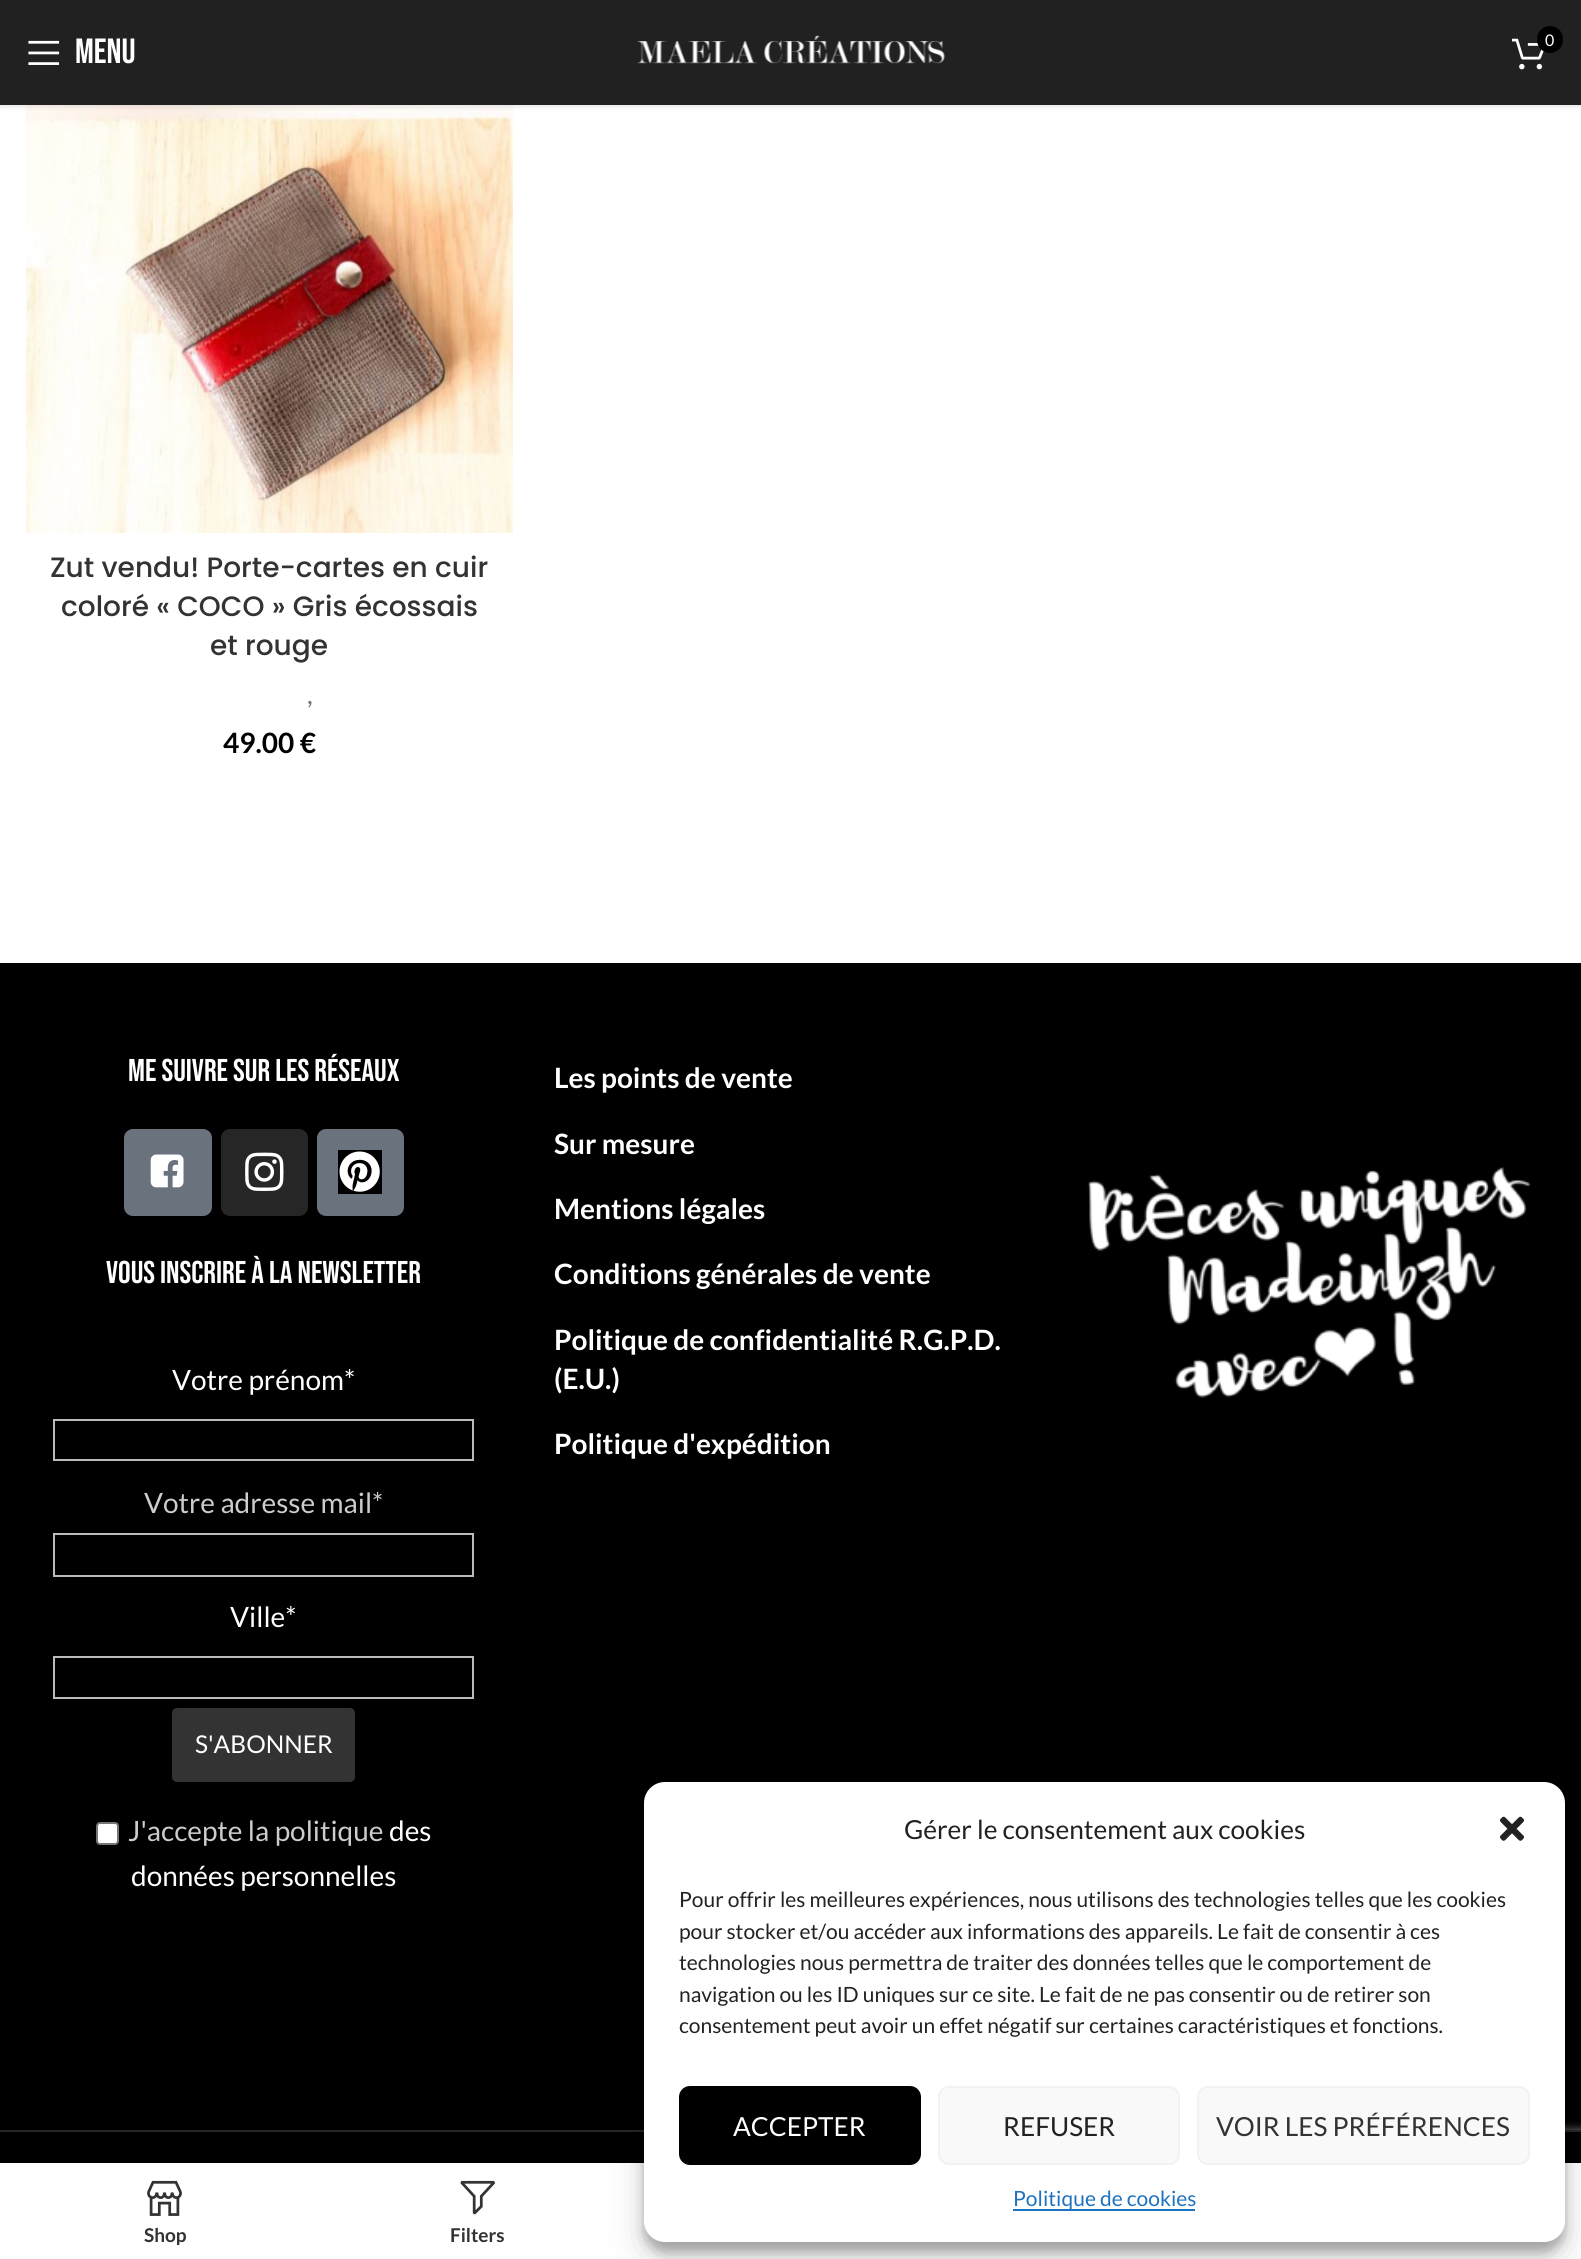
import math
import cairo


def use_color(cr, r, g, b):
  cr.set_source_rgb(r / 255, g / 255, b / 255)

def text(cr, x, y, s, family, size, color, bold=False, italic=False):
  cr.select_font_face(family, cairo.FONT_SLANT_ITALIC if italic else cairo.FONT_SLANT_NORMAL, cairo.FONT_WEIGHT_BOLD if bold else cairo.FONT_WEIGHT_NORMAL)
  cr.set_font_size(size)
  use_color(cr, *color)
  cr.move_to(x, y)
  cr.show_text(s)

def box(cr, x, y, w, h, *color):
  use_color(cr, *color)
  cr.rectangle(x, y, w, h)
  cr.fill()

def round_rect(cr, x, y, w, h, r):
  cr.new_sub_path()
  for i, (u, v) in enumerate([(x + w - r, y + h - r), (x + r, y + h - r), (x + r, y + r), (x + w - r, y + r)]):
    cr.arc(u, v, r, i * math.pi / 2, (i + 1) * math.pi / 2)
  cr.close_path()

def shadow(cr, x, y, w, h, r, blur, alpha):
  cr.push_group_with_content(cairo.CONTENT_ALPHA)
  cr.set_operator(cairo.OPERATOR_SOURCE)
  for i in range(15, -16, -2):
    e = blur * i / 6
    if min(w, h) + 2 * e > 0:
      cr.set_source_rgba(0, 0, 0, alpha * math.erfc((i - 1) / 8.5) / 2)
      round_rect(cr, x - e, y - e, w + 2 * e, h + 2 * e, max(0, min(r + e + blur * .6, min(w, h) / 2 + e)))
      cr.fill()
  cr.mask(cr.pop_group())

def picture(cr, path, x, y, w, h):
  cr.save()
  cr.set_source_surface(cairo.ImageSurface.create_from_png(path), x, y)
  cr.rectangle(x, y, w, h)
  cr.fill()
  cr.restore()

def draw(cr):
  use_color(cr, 255, 255, 255)
  cr.paint()
  picture(cr, "img_04.png", 26, 105, 487, 428)
  use_color(cr, 0, 0, 0)
  shadow(cr, 0, 2, 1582, 105, 0, 2.5, 0.1)
  box(cr, 0, 0, 1581, 105, 33, 33, 33)
  picture(cr, "img_01.png", 28, 40, 32, 25)
  picture(cr, "img_02.png", 637, 35, 308, 29)
  picture(cr, "img_03.png", 1512, 38, 32, 32)
  use_color(cr, 0, 0, 0)
  round_rect(cr, 1537, 26, 26, 27, 13)
  cr.fill()
  box(cr, 0, 963, 1581, 1200, 0, 0, 0)
  use_color(cr, 105, 114, 125)
  round_rect(cr, 124, 1129, 88, 87, 9)
  cr.fill()
  picture(cr, "img_05.png", 150, 1154, 34, 34)
  use_color(cr, 38, 38, 38)
  round_rect(cr, 221, 1129, 87, 87, 9)
  cr.fill()
  picture(cr, "img_06.png", 245, 1152, 39, 39)
  use_color(cr, 105, 114, 125)
  round_rect(cr, 317, 1129, 87, 87, 9)
  cr.fill()
  picture(cr, "img_07.png", 338, 1150, 44, 44)
  cr.rectangle(54, 1420, 419, 40)
  use_color(cr, 187, 187, 187)
  cr.stroke()
  cr.rectangle(54, 1534, 419, 42)
  cr.stroke()
  cr.rectangle(54, 1657, 419, 41)
  cr.stroke()
  use_color(cr, 51, 51, 51)
  round_rect(cr, 172, 1708, 183, 74, 5)
  cr.fill()
  use_color(cr, 255, 255, 255)
  round_rect(cr, 97, 1823, 21, 21, 3)
  cr.fill_preserve()
  use_color(cr, 118, 118, 118)
  cr.stroke()
  picture(cr, "img_08.png", 1087, 1166, 444, 232)
  box(cr, 0, 2130, 1581, 2, 38, 38, 38)
  use_color(cr, 0, 0, 0)
  shadow(cr, 0, 2163, 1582, 96, 0, 8, 0.12)
  cr.save()
  cr.rectangle(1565, 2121, 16, 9)
  cr.clip()
  use_color(cr, 128, 128, 128)
  shadow(cr, 1460, 2130, 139, 105, 4, 4.5, 1)
  cr.restore()
  box(cr, 0, 2163, 1581, 96, 255, 255, 255)
  picture(cr, "img_09.png", 147, 2180, 35, 36)
  picture(cr, "img_10.png", 460, 2180, 36, 35)
  use_color(cr, 0, 0, 0)
  shadow(cr, 644, 1792, 921, 460, 21, 5, 0.23)
  shadow(cr, 644, 1799, 921, 460, 21, 17.5, 0.19)
  use_color(cr, 255, 255, 255)
  round_rect(cr, 644, 1782, 921, 460, 21)
  cr.fill()
  picture(cr, "img_11.png", 1500, 1816, 24, 25)
  use_color(cr, 0, 0, 0)
  round_rect(cr, 680, 2087, 240, 77, 10)
  cr.fill_preserve()
  cr.stroke()
  use_color(cr, 249, 249, 249)
  round_rect(cr, 939, 2087, 240, 77, 10)
  cr.fill_preserve()
  use_color(cr, 242, 242, 242)
  cr.stroke()
  use_color(cr, 249, 249, 249)
  round_rect(cr, 1198, 2087, 331, 77, 10)
  cr.fill_preserve()
  use_color(cr, 242, 242, 242)
  cr.stroke()
  box(cr, 1013, 2209, 182, 2, 30, 115, 190)
  text(cr, 75, 63, "MENU", "Bebas Neue", 35, (255, 255, 255))
  text(cr, 1545, 46, "0", "Lato", 16, (255, 255, 255))
  text(cr, 50, 577, "Zut vendu! Porte-cartes en cuir", "Poppins Medium", 28, (51, 51, 51))
  text(cr, 61, 616, "coloré « COCO » Gris écossais", "Poppins Medium", 28, (51, 51, 51))
  text(cr, 210, 655, "et rouge", "Poppins Medium", 28, (51, 51, 51))
  text(cr, 307, 704, ",", "Lato", 27, (119, 119, 119))
  text(cr, 223, 753, "49.00 €", "Lato", 28, (0, 0, 0), bold=True)
  text(cr, 128, 1081, "Me suivre sur les réseaux", "Bebas Neue", 31.5, (255, 255, 255))
  text(cr, 106, 1283, "Vous inscrire à la newsletter", "Bebas Neue", 31.5, (255, 255, 255))
  text(cr, 172, 1390, "Votre prénom*", "Lato", 28, (255, 255, 255))
  text(cr, 144, 1513, "Votre adresse mail*", "Lato", 28, (204, 204, 204))
  text(cr, 230, 1627, "Ville*", "Lato", 28, (255, 255, 255))
  text(cr, 195, 1753, "S'ABONNER", "Lato", 24.5, (255, 255, 255))
  text(cr, 128, 1841, "J'accepte la politique", "Lato", 28, (204, 204, 204))
  text(cr, 389, 1841, "des", "Lato", 28, (255, 255, 255))
  text(cr, 131, 1886, "données personnelles", "Lato", 28, (255, 255, 255))
  text(cr, 554, 1088, "Les points de vente", "Lato", 28, (255, 255, 255), bold=True)
  text(cr, 554, 1154, "Sur mesure", "Lato", 28, (255, 255, 255), bold=True)
  text(cr, 554, 1219, "Mentions légales", "Lato", 28, (255, 255, 255), bold=True)
  text(cr, 554, 1284, "Conditions générales de vente", "Lato", 28, (255, 255, 255), bold=True)
  text(cr, 554, 1350, "Politique de confidentialité R.G.P.D.", "Lato", 28, (255, 255, 255), bold=True)
  text(cr, 554, 1389, "(E.U.)", "Lato", 28, (255, 255, 255), bold=True)
  text(cr, 554, 1454, "Politique d'expédition", "Lato", 28, (255, 255, 255), bold=True)
  cr.save()
  cr.rectangle(26, 2223, 279, 22)
  cr.clip()
  text(cr, 144, 2242, "Shop", "Lato", 19, (51, 51, 51), bold=True)
  cr.restore()
  text(cr, 450, 2242, "Filters", "Lato", 19, (51, 51, 51), bold=True)
  text(cr, 904, 1839, "Gérer le consentement aux cookies", "Lato", 26.25, (34, 34, 34))
  text(cr, 679, 1907, "Pour offrir les meilleures expériences, nous utilisons des technologies telles que les cookies", "Lato", 21, (34, 34, 34))
  text(cr, 679, 1939, "pour stocker et/ou accéder aux informations des appareils. Le fait de consentir à ces", "Lato", 21, (34, 34, 34))
  text(cr, 679, 1970, "technologies nous permettra de traiter des données telles que le comportement de", "Lato", 21, (34, 34, 34))
  text(cr, 679, 2002, "navigation ou les ID uniques sur ce site. Le fait de ne pas consentir ou de retirer son", "Lato", 21, (34, 34, 34))
  text(cr, 679, 2033, "consentement peut avoir un effet négatif sur certaines caractéristiques et fonctions.", "Lato", 21, (34, 34, 34))
  text(cr, 733, 2136, "ACCEPTER", "Lato", 26.25, (255, 255, 255))
  text(cr, 1003, 2136, "REFUSER", "Lato", 26.25, (34, 34, 34))
  text(cr, 1216, 2136, "VOIR LES PRÉFÉRENCES", "Lato", 26.25, (51, 51, 51))
  text(cr, 1013, 2206, "Politique de cookies", "Lato", 21, (30, 115, 190))


surface = cairo.ImageSurface(cairo.FORMAT_RGB24, 1581, 2259)
cr = cairo.Context(surface)
options = cairo.FontOptions()
options.set_hint_metrics(cairo.HINT_METRICS_OFF)
options.set_hint_style(cairo.HINT_STYLE_NONE)
cr.set_font_options(options)
cr.set_miter_limit(4)
draw(cr)
surface.write_to_png("out.png")
